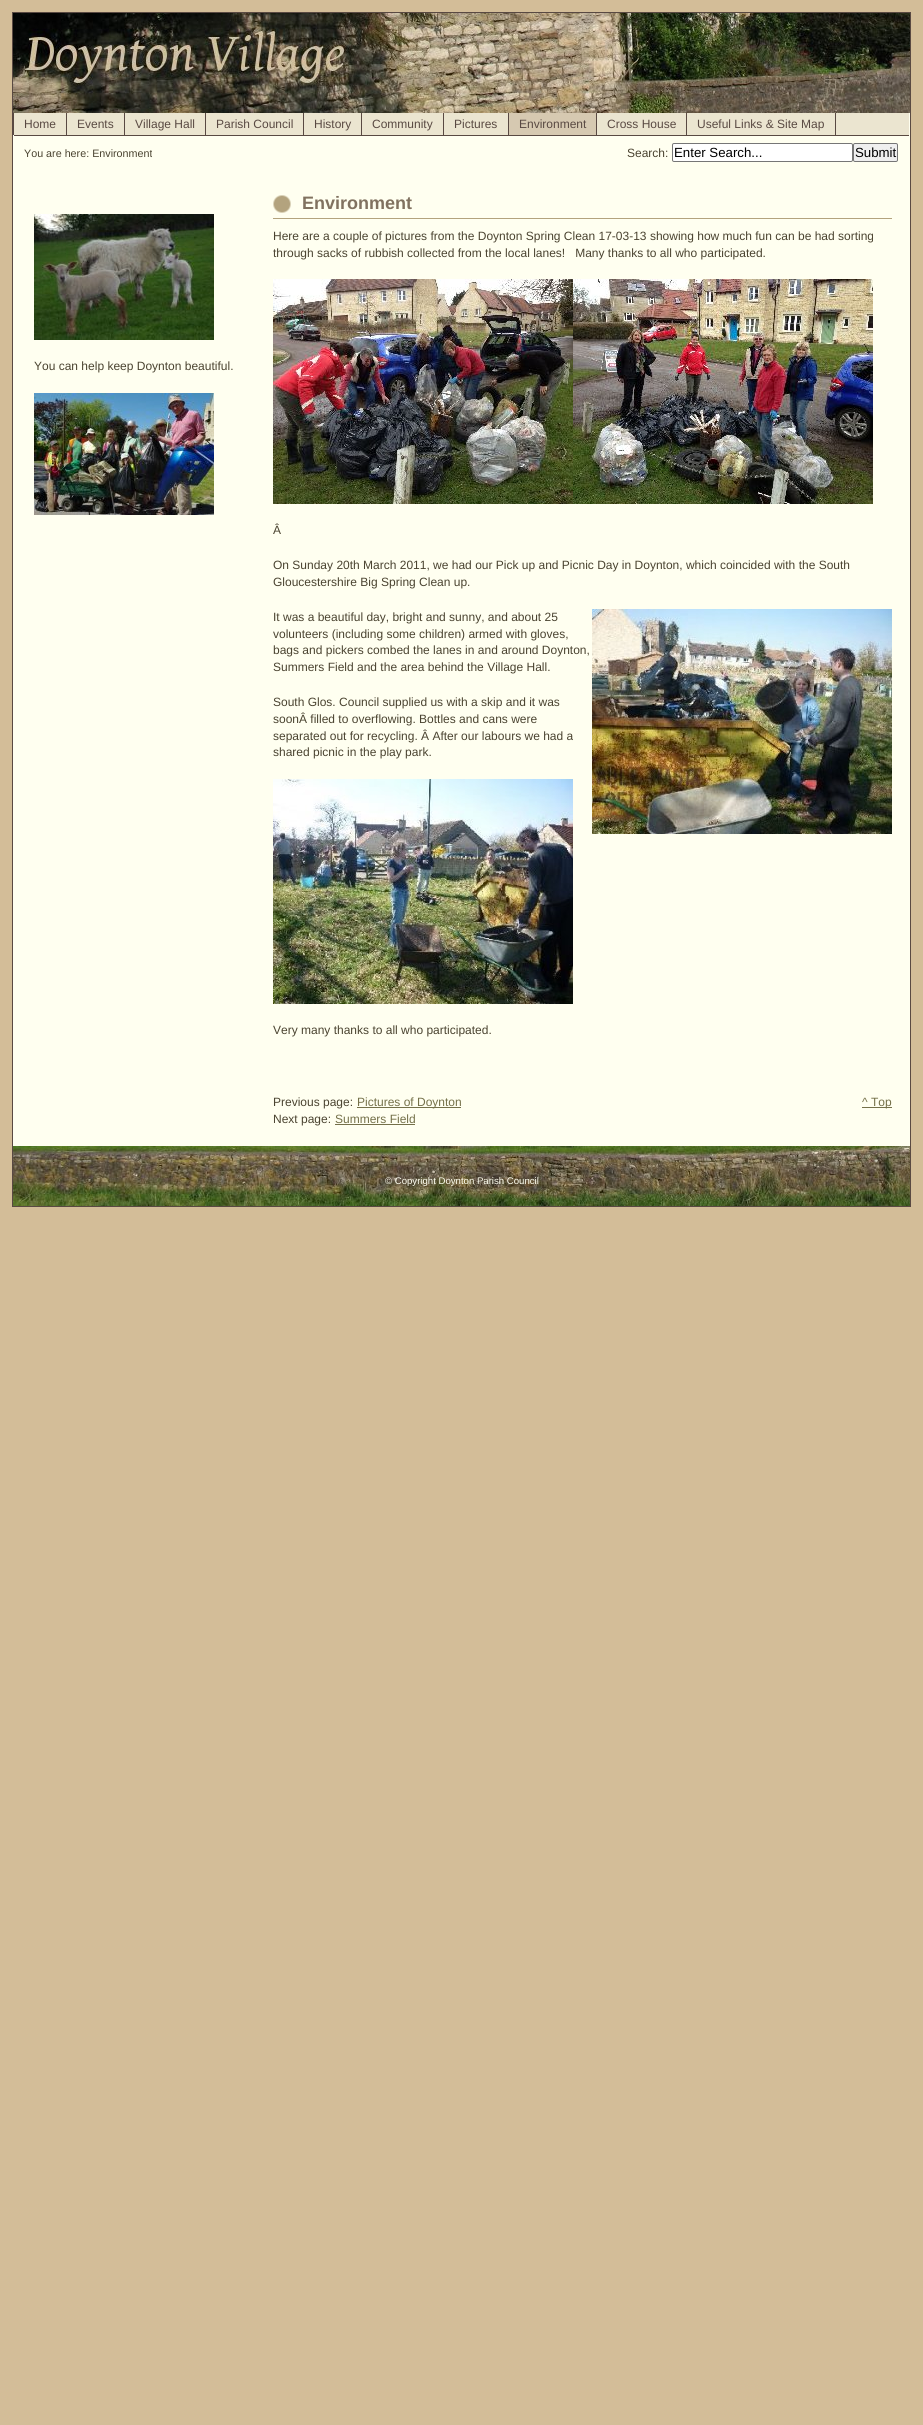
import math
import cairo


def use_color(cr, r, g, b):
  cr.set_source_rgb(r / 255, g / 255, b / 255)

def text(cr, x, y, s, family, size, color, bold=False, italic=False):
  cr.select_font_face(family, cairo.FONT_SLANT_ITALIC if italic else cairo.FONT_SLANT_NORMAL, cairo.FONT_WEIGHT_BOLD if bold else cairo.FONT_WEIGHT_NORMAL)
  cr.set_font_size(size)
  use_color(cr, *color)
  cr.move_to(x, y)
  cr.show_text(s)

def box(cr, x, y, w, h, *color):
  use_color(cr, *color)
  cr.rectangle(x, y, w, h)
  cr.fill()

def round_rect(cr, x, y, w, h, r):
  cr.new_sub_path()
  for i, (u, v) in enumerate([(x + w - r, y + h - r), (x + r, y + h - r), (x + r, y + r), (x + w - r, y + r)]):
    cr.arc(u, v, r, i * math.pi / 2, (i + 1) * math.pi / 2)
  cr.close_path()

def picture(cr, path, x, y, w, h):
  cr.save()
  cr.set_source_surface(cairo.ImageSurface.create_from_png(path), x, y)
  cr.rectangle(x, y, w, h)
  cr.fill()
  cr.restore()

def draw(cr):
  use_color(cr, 211, 189, 152)
  cr.paint()
  box(cr, 13, 113, 897, 1033, 255, 255, 240)
  cr.rectangle(12.5, 12.5, 898, 1194)
  use_color(cr, 89, 73, 66)
  cr.set_line_width(1)
  cr.stroke()
  picture(cr, "img_01.png", 13, 13, 897, 100)
  box(cr, 836, 113, 73, 22, 235, 229, 208)
  box(cr, 14, 135, 895, 1, 89, 73, 66)
  box(cr, 14, 113, 52, 22, 235, 229, 208)
  box(cr, 13, 113, 1, 22, 89, 73, 66)
  box(cr, 67, 113, 57, 22, 235, 229, 208)
  box(cr, 66, 113, 1, 22, 89, 73, 66)
  box(cr, 125, 113, 80, 22, 235, 229, 208)
  box(cr, 124, 113, 1, 22, 89, 73, 66)
  box(cr, 206, 113, 97, 22, 235, 229, 208)
  box(cr, 205, 113, 1, 22, 89, 73, 66)
  box(cr, 304, 113, 57, 22, 235, 229, 208)
  box(cr, 303, 113, 1, 22, 89, 73, 66)
  box(cr, 362, 113, 81, 22, 235, 229, 208)
  box(cr, 361, 113, 1, 22, 89, 73, 66)
  box(cr, 444, 113, 64, 22, 235, 229, 208)
  box(cr, 443, 113, 1, 22, 89, 73, 66)
  box(cr, 509, 113, 87, 22, 214, 201, 177)
  box(cr, 508, 113, 1, 22, 89, 73, 66)
  box(cr, 597, 113, 89, 22, 235, 229, 208)
  box(cr, 596, 113, 1, 22, 89, 73, 66)
  box(cr, 687, 113, 148, 22, 235, 229, 208)
  box(cr, 835, 113, 1, 22, 89, 73, 66)
  box(cr, 686, 113, 1, 22, 89, 73, 66)
  use_color(cr, 255, 255, 255)
  round_rect(cr, 672.5, 143.5, 180, 18, 1.5)
  cr.fill_preserve()
  use_color(cr, 118, 118, 118)
  cr.stroke()
  use_color(cr, 239, 239, 239)
  round_rect(cr, 853.5, 143.5, 44, 18, 1.5)
  cr.fill_preserve()
  use_color(cr, 118, 118, 118)
  cr.stroke()
  picture(cr, "img_02.png", 34, 214, 180, 126)
  picture(cr, "img_03.png", 34, 393, 180, 122)
  picture(cr, "img_04.png", 273, 195, 18, 18)
  box(cr, 273, 218, 619, 1, 179, 163, 126)
  picture(cr, "img_05.png", 273, 279, 300, 225)
  picture(cr, "img_06.png", 573, 279, 300, 225)
  picture(cr, "img_07.png", 592, 609, 300, 225)
  picture(cr, "img_08.png", 273, 779, 300, 225)
  box(cr, 357, 1107, 104, 1, 116, 112, 73)
  box(cr, 335, 1124, 80, 1, 116, 112, 73)
  box(cr, 862, 1107, 30, 1, 116, 112, 73)
  picture(cr, "img_09.png", 13, 1146, 897, 60)
  text(cr, 24, 128, "Home", "Liberation Sans", 12, (89, 73, 66))
  text(cr, 77, 128, "Events", "Liberation Sans", 12, (89, 73, 66))
  text(cr, 135, 128, "Village Hall", "Liberation Sans", 12, (89, 73, 66))
  text(cr, 216, 128, "Parish Council", "Liberation Sans", 12, (89, 73, 66))
  text(cr, 314, 128, "History", "Liberation Sans", 12, (89, 73, 66))
  text(cr, 372, 128, "Community", "Liberation Sans", 12, (89, 73, 66))
  text(cr, 454, 128, "Pictures", "Liberation Sans", 12, (89, 73, 66))
  text(cr, 519, 128, "Environment", "Liberation Sans", 12, (89, 73, 66))
  text(cr, 607, 128, "Cross House", "Liberation Sans", 12, (89, 73, 66))
  text(cr, 697, 128, "Useful Links & Site Map", "Liberation Sans", 12, (89, 73, 66))
  text(cr, 24, 157, "You are here: Environment", "Liberation Sans", 10.75, (74, 67, 48))
  text(cr, 627, 157, "Search:", "Liberation Sans", 12, (74, 67, 48))
  text(cr, 674, 157, "Enter Search...", "Liberation Sans", 13.25, (0, 0, 0))
  text(cr, 855, 157, "Submit", "Liberation Sans", 13.25, (0, 0, 0))
  text(cr, 34, 370, "You can help keep Doynton beautiful.", "Liberation Sans", 12, (74, 67, 48))
  text(cr, 302, 209, "Environment", "Liberation Sans", 18, (129, 114, 96), bold=True)
  text(cr, 273, 240, "Here are a couple of pictures from the Doynton Spring Clean 17-03-13 showing how much fun can be had sorting", "Liberation Sans", 12, (74, 67, 48))
  text(cr, 273, 257, "through sacks of rubbish collected from the local lanes!   Many thanks to all who participated.", "Liberation Sans", 12, (74, 67, 48))
  text(cr, 273, 534, "Â", "Liberation Sans", 12, (74, 67, 48))
  text(cr, 273, 569, "On Sunday 20th March 2011, we had our Pick up and Picnic Day in Doynton, which coincided with the South", "Liberation Sans", 12, (74, 67, 48))
  text(cr, 273, 586, "Gloucestershire Big Spring Clean up.", "Liberation Sans", 12, (74, 67, 48))
  text(cr, 273, 621, "It was a beautiful day, bright and sunny, and about 25", "Liberation Sans", 12, (74, 67, 48))
  text(cr, 273, 638, "volunteers (including some children) armed with gloves,", "Liberation Sans", 12, (74, 67, 48))
  text(cr, 273, 654, "bags and pickers combed the lanes in and around Doynton,", "Liberation Sans", 12, (74, 67, 48))
  text(cr, 273, 671, "Summers Field and the area behind the Village Hall.", "Liberation Sans", 12, (74, 67, 48))
  text(cr, 273, 706, "South Glos. Council supplied us with a skip and it was", "Liberation Sans", 12, (74, 67, 48))
  text(cr, 273, 723, "soonÂ filled to overflowing. Bottles and cans were", "Liberation Sans", 12, (74, 67, 48))
  text(cr, 273, 740, "separated out for recycling. Â After our labours we had a", "Liberation Sans", 12, (74, 67, 48))
  text(cr, 273, 756, "shared picnic in the play park.", "Liberation Sans", 12, (74, 67, 48))
  text(cr, 273, 1034, "Very many thanks to all who participated.", "Liberation Sans", 12, (74, 67, 48))
  text(cr, 273, 1106, "Previous page:", "Liberation Sans", 12, (74, 67, 48))
  text(cr, 357, 1106, "Pictures of Doynton", "Liberation Sans", 12, (116, 112, 73))
  text(cr, 273, 1123, "Next page:", "Liberation Sans", 12, (74, 67, 48))
  text(cr, 335, 1123, "Summers Field", "Liberation Sans", 12, (116, 112, 73))
  text(cr, 862, 1106, "^ Top", "Liberation Sans", 12, (116, 112, 73))
  text(cr, 385, 1184, "© Copyright Doynton Parish Council", "Liberation Sans", 9.6, (255, 255, 240))


surface = cairo.ImageSurface(cairo.FORMAT_RGB24, 923, 2425)
cr = cairo.Context(surface)
options = cairo.FontOptions()
options.set_hint_metrics(cairo.HINT_METRICS_OFF)
options.set_hint_style(cairo.HINT_STYLE_NONE)
cr.set_font_options(options)
cr.set_miter_limit(4)
draw(cr)
surface.write_to_png("out.png")
